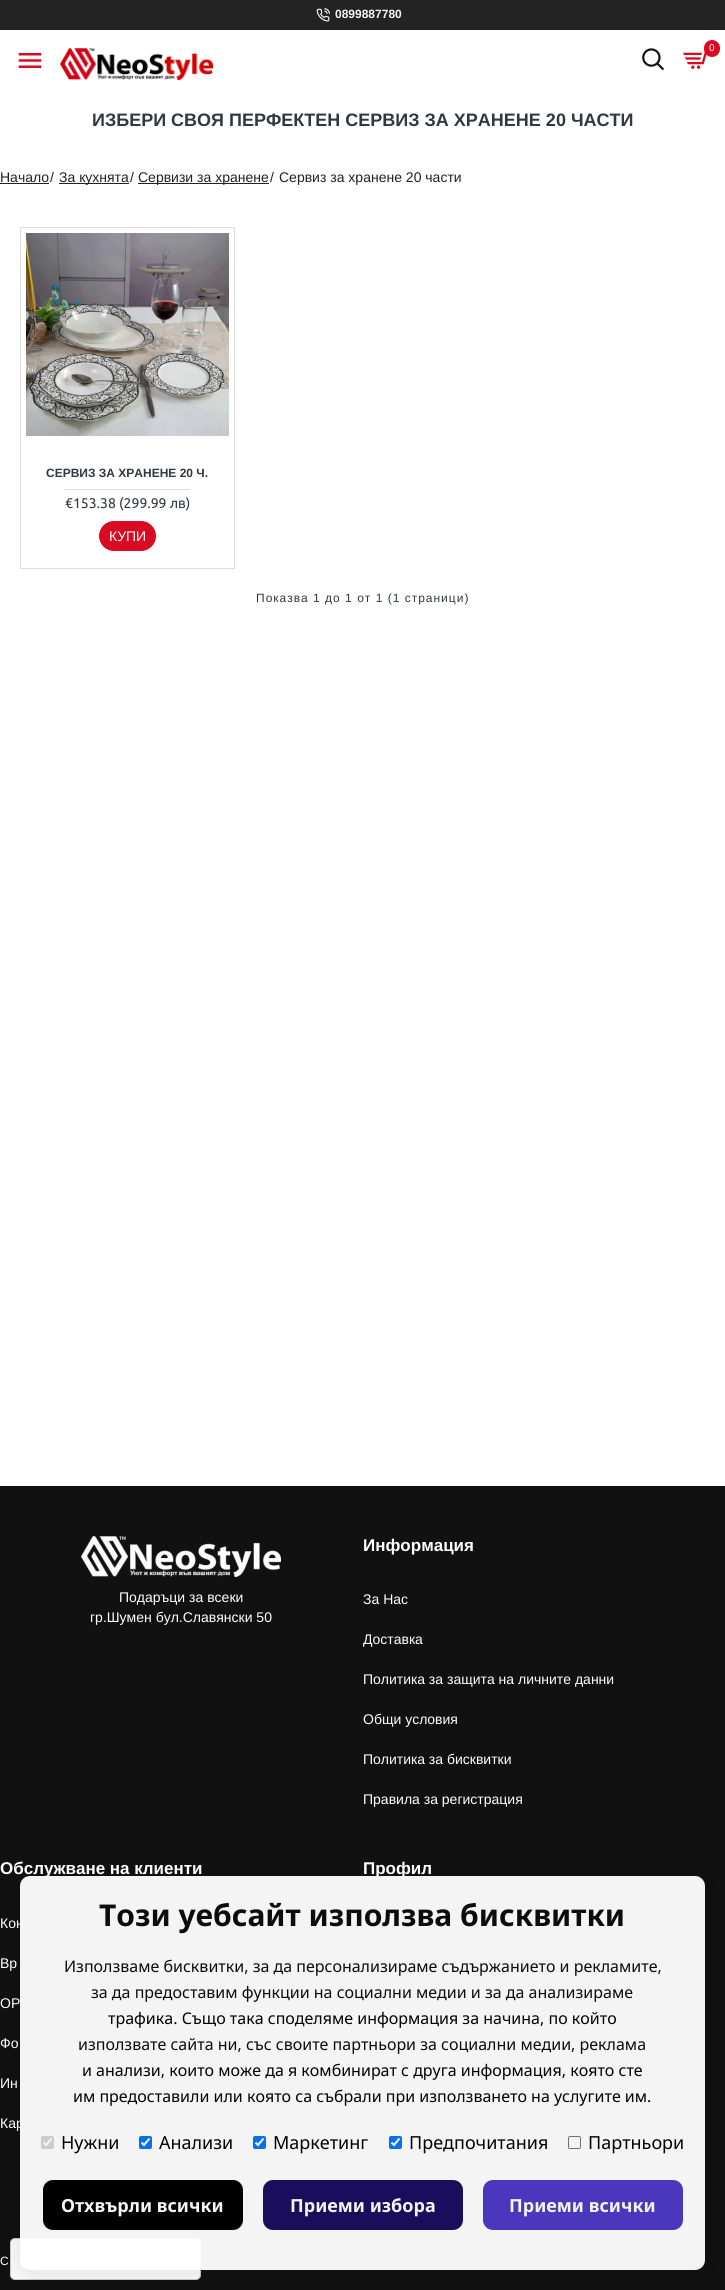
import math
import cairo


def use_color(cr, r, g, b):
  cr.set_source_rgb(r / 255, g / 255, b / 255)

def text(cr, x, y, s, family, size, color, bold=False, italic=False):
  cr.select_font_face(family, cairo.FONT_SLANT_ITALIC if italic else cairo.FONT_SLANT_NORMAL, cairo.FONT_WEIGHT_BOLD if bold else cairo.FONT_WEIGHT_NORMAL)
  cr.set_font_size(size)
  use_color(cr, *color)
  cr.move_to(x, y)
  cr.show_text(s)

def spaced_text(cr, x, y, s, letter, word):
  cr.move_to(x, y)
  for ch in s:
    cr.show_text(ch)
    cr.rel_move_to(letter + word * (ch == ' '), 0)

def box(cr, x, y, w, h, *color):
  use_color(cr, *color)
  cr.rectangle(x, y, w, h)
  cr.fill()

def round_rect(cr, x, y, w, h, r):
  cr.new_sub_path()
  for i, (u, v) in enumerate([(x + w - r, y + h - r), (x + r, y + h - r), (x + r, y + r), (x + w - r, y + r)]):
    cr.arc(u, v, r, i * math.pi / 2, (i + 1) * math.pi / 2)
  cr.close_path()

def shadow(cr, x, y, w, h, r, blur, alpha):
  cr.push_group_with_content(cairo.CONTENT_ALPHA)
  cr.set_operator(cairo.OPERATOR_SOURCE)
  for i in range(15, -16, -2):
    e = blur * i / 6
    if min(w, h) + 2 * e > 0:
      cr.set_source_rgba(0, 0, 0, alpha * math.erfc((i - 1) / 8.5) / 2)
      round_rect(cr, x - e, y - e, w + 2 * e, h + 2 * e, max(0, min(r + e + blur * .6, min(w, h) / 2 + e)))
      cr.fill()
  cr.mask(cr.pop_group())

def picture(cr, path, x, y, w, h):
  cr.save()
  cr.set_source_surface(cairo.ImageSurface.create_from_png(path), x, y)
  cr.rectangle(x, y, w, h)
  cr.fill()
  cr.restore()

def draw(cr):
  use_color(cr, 255, 255, 255)
  cr.paint()
  box(cr, 0, 0, 725, 30, 35, 35, 35)
  picture(cr, "img_01.png", 316, 8, 14, 14)
  picture(cr, "img_02.png", 60, 48, 153, 32)
  picture(cr, "img_03.png", 18, 53, 24, 15)
  picture(cr, "img_04.png", 642, 48, 22, 22)
  picture(cr, "img_05.png", 683, 51, 24, 18)
  use_color(cr, 218, 10, 34)
  round_rect(cr, 704, 40, 16, 17, 8)
  cr.fill()
  box(cr, 0, 183, 49, 1, 34, 34, 34)
  box(cr, 59, 183, 70, 1, 34, 34, 34)
  box(cr, 138, 183, 131, 1, 34, 34, 34)
  cr.rectangle(20.5, 227.5, 214, 341)
  use_color(cr, 221, 221, 221)
  cr.set_line_width(1)
  cr.stroke()
  picture(cr, "img_06.png", 26, 233, 203, 203)
  box(cr, 65, 489, 125, 1, 221, 221, 221)
  use_color(cr, 218, 10, 34)
  round_rect(cr, 99, 521, 57, 30, 15)
  cr.fill()
  box(cr, 0, 1486, 725, 804, 17, 17, 17)
  picture(cr, "img_07.png", 81, 1536, 200, 41)
  use_color(cr, 255, 255, 255)
  round_rect(cr, 10.5, 2238.5, 190, 41, 4.5)
  cr.fill_preserve()
  use_color(cr, 204, 204, 204)
  cr.stroke()
  cr.save()
  cr.set_fill_rule(cairo.FILL_RULE_EVEN_ODD)
  cr.new_path()
  cr.move_to(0, 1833)
  cr.line_to(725, 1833)
  cr.line_to(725, 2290)
  cr.line_to(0, 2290)
  cr.close_path()
  cr.move_to(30, 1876)
  cr.line_to(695, 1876)
  cr.curve_to(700.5, 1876, 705, 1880.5, 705, 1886)
  cr.line_to(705, 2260)
  cr.curve_to(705, 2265.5, 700.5, 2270, 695, 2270)
  cr.line_to(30, 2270)
  cr.curve_to(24.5, 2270, 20, 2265.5, 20, 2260)
  cr.line_to(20, 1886)
  cr.curve_to(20, 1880.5, 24.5, 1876, 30, 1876)
  cr.close_path()
  cr.clip()
  use_color(cr, 0, 0, 0)
  shadow(cr, 20, 1879, 685, 394, 10, 15, 0.15)
  cr.restore()
  text(cr, 335, 18, "0899887780", "Liberation Sans", 12, (245, 245, 245), bold=True)
  text(cr, 709, 51, "0", "Liberation Sans", 10, (255, 255, 255))
  text(cr, 92, 126, "ИЗБЕРИ СВОЯ ПЕРФЕКТЕН СЕРВИЗ ЗА ХРАНЕНЕ 20 ЧАСТИ", "Liberation Sans", 18, (48, 56, 65), bold=True)
  text(cr, 0, 182, "Начало", "Liberation Sans", 14, (34, 34, 34))
  text(cr, 50, 182, "/", "Liberation Sans", 14, (34, 34, 34))
  text(cr, 59, 182, "За кухнята", "Liberation Sans", 14, (34, 34, 34))
  text(cr, 130, 182, "/", "Liberation Sans", 14, (34, 34, 34))
  text(cr, 138, 182, "Сервизи за хранене", "Liberation Sans", 14, (34, 34, 34))
  text(cr, 270, 182, "/", "Liberation Sans", 14, (34, 34, 34))
  text(cr, 279, 182, "Сервиз за хранене 20 части", "Liberation Sans", 14, (34, 34, 34))
  text(cr, 46, 477, "СЕРВИЗ ЗА ХРАНЕНЕ 20 Ч.", "Liberation Sans", 12, (48, 56, 65), bold=True)
  text(cr, 65, 508, "€153.38 (299.99 лв)", "Ubuntu", 14, (48, 56, 65))
  text(cr, 109, 541, "КУПИ", "Liberation Sans", 14, (255, 255, 255))
  cr.set_font_size(12)
  use_color(cr, 48, 56, 65)
  spaced_text(cr, 256, 602, "Показва 1 до 1 от 1 (1 страници)", 1, 0)
  text(cr, 119, 1602, "Подаръци за всеки", "Liberation Sans", 14, (255, 255, 255))
  text(cr, 90, 1622, "гр.Шумен бул.Славянски 50", "Liberation Sans", 14, (255, 255, 255))
  text(cr, 363, 1551, "Информация", "Liberation Sans", 17, (255, 255, 255), bold=True)
  text(cr, 363, 1604, "За Нас", "Liberation Sans", 14, (255, 255, 255))
  text(cr, 363, 1644, "Доставка", "Liberation Sans", 14, (255, 255, 255))
  text(cr, 363, 1684, "Политика за защита на личните данни", "Liberation Sans", 14, (255, 255, 255))
  text(cr, 363, 1724, "Общи условия", "Liberation Sans", 14, (255, 255, 255))
  text(cr, 363, 1764, "Политика за бисквитки", "Liberation Sans", 14, (255, 255, 255))
  text(cr, 363, 1804, "Правила за регистрация", "Liberation Sans", 14, (255, 255, 255))
  text(cr, 0, 1874, "Обслужване на клиенти", "Liberation Sans", 17, (255, 255, 255), bold=True)
  text(cr, 0, 1928, "Кон", "Liberation Sans", 14, (255, 255, 255))
  text(cr, 0, 1968, "Вр", "Liberation Sans", 14, (255, 255, 255))
  text(cr, 0, 2008, "ОР", "Liberation Sans", 14, (255, 255, 255))
  text(cr, 0, 2048, "Фо", "Liberation Sans", 14, (255, 255, 255))
  text(cr, 0, 2088, "Ин", "Liberation Sans", 14, (255, 255, 255))
  text(cr, 0, 2128, "Кар", "Liberation Sans", 14, (255, 255, 255))
  text(cr, 363, 1874, "Профил", "Liberation Sans", 17, (255, 255, 255), bold=True)
  text(cr, 0, 2265, "C", "Liberation Sans", 12, (255, 255, 255))
  cr.set_source_rgba(1, 1, 1, 0.95)
  round_rect(cr, 20, 1876, 685, 394, 10)
  cr.fill()
  text(cr, 99, 1926, "Този уебсайт използва бисквитки", "Noto Sans", 30, (12, 12, 12), bold=True)
  text(cr, 64, 1972, "Използваме бисквитки, за да персонализираме съдържанието и рекламите,", "Noto Sans", 16, (12, 12, 12))
  text(cr, 91, 1998, "за да предоставим функции на социални медии и за да анализираме", "Noto Sans", 16, (12, 12, 12))
  text(cr, 108, 2024, "трафика. Също така споделяме информация за начина, по който", "Noto Sans", 16, (1, 1, 1))
  text(cr, 78, 2050, "използвате сайта ни, със своите партньори за социални медии, реклама", "Noto Sans", 16, (12, 12, 12))
  text(cr, 82, 2076, "и анализи, които може да я комбинират с друга информация, която сте", "Noto Sans", 16, (1, 1, 1))
  text(cr, 73, 2102, "им предоставили или която са събрали при използването на услугите им.", "Noto Sans", 16, (1, 1, 1))
  use_color(cr, 204, 204, 204)
  round_rect(cr, 41, 2136, 13, 13, 2)
  cr.fill()
  cr.new_path()
  cr.move_to(43.5, 2142.5)
  cr.line_to(46, 2145)
  cr.line_to(51.5, 2138.5)
  use_color(cr, 243, 243, 243)
  cr.set_line_width(2.1)
  cr.stroke()
  text(cr, 61, 2149, "Нужни", "Noto Sans", 18, (1, 1, 1))
  use_color(cr, 1, 112, 243)
  round_rect(cr, 139, 2136, 13, 13, 2)
  cr.fill()
  cr.new_path()
  cr.move_to(141.5, 2142.5)
  cr.line_to(144, 2145)
  cr.line_to(149.5, 2138.5)
  use_color(cr, 243, 243, 243)
  cr.stroke()
  text(cr, 159, 2149, "Анализи", "Noto Sans", 18, (1, 1, 1))
  use_color(cr, 1, 112, 243)
  round_rect(cr, 253, 2136, 13, 13, 2)
  cr.fill()
  cr.new_path()
  cr.move_to(255.5, 2142.5)
  cr.line_to(258, 2145)
  cr.line_to(263.5, 2138.5)
  use_color(cr, 243, 243, 243)
  cr.stroke()
  text(cr, 273, 2149, "Маркетинг", "Noto Sans", 18, (1, 1, 1))
  use_color(cr, 1, 112, 243)
  round_rect(cr, 389, 2136, 13, 13, 2)
  cr.fill()
  cr.new_path()
  cr.move_to(391.5, 2142.5)
  cr.line_to(394, 2145)
  cr.line_to(399.5, 2138.5)
  use_color(cr, 243, 243, 243)
  cr.stroke()
  text(cr, 409, 2149, "Предпочитания", "Noto Sans", 18, (1, 1, 1))
  round_rect(cr, 568.5, 2136.5, 12, 12, 1.5)
  use_color(cr, 113, 113, 113)
  cr.set_line_width(1)
  cr.stroke()
  text(cr, 588, 2149, "Партньори", "Noto Sans", 18, (1, 1, 1))
  round_rect(cr, 43, 2180, 200, 50, 10)
  cr.fill()
  text(cr, 61, 2212, "Отхвърли всички", "Noto Sans", 18, (245, 245, 245), bold=True)
  use_color(cr, 26, 13, 92)
  round_rect(cr, 263, 2180, 200, 50, 10)
  cr.fill()
  text(cr, 290, 2212, "Приеми избора", "Noto Sans", 18, (245, 245, 245), bold=True)
  use_color(cr, 75, 54, 190)
  round_rect(cr, 483, 2180, 200, 50, 10)
  cr.fill()
  text(cr, 509, 2212, "Приеми всички", "Noto Sans", 18, (245, 245, 245), bold=True)


surface = cairo.ImageSurface(cairo.FORMAT_RGB24, 725, 2290)
cr = cairo.Context(surface)
options = cairo.FontOptions()
options.set_hint_metrics(cairo.HINT_METRICS_OFF)
options.set_hint_style(cairo.HINT_STYLE_NONE)
cr.set_font_options(options)
cr.set_miter_limit(4)
draw(cr)
surface.write_to_png("out.png")
